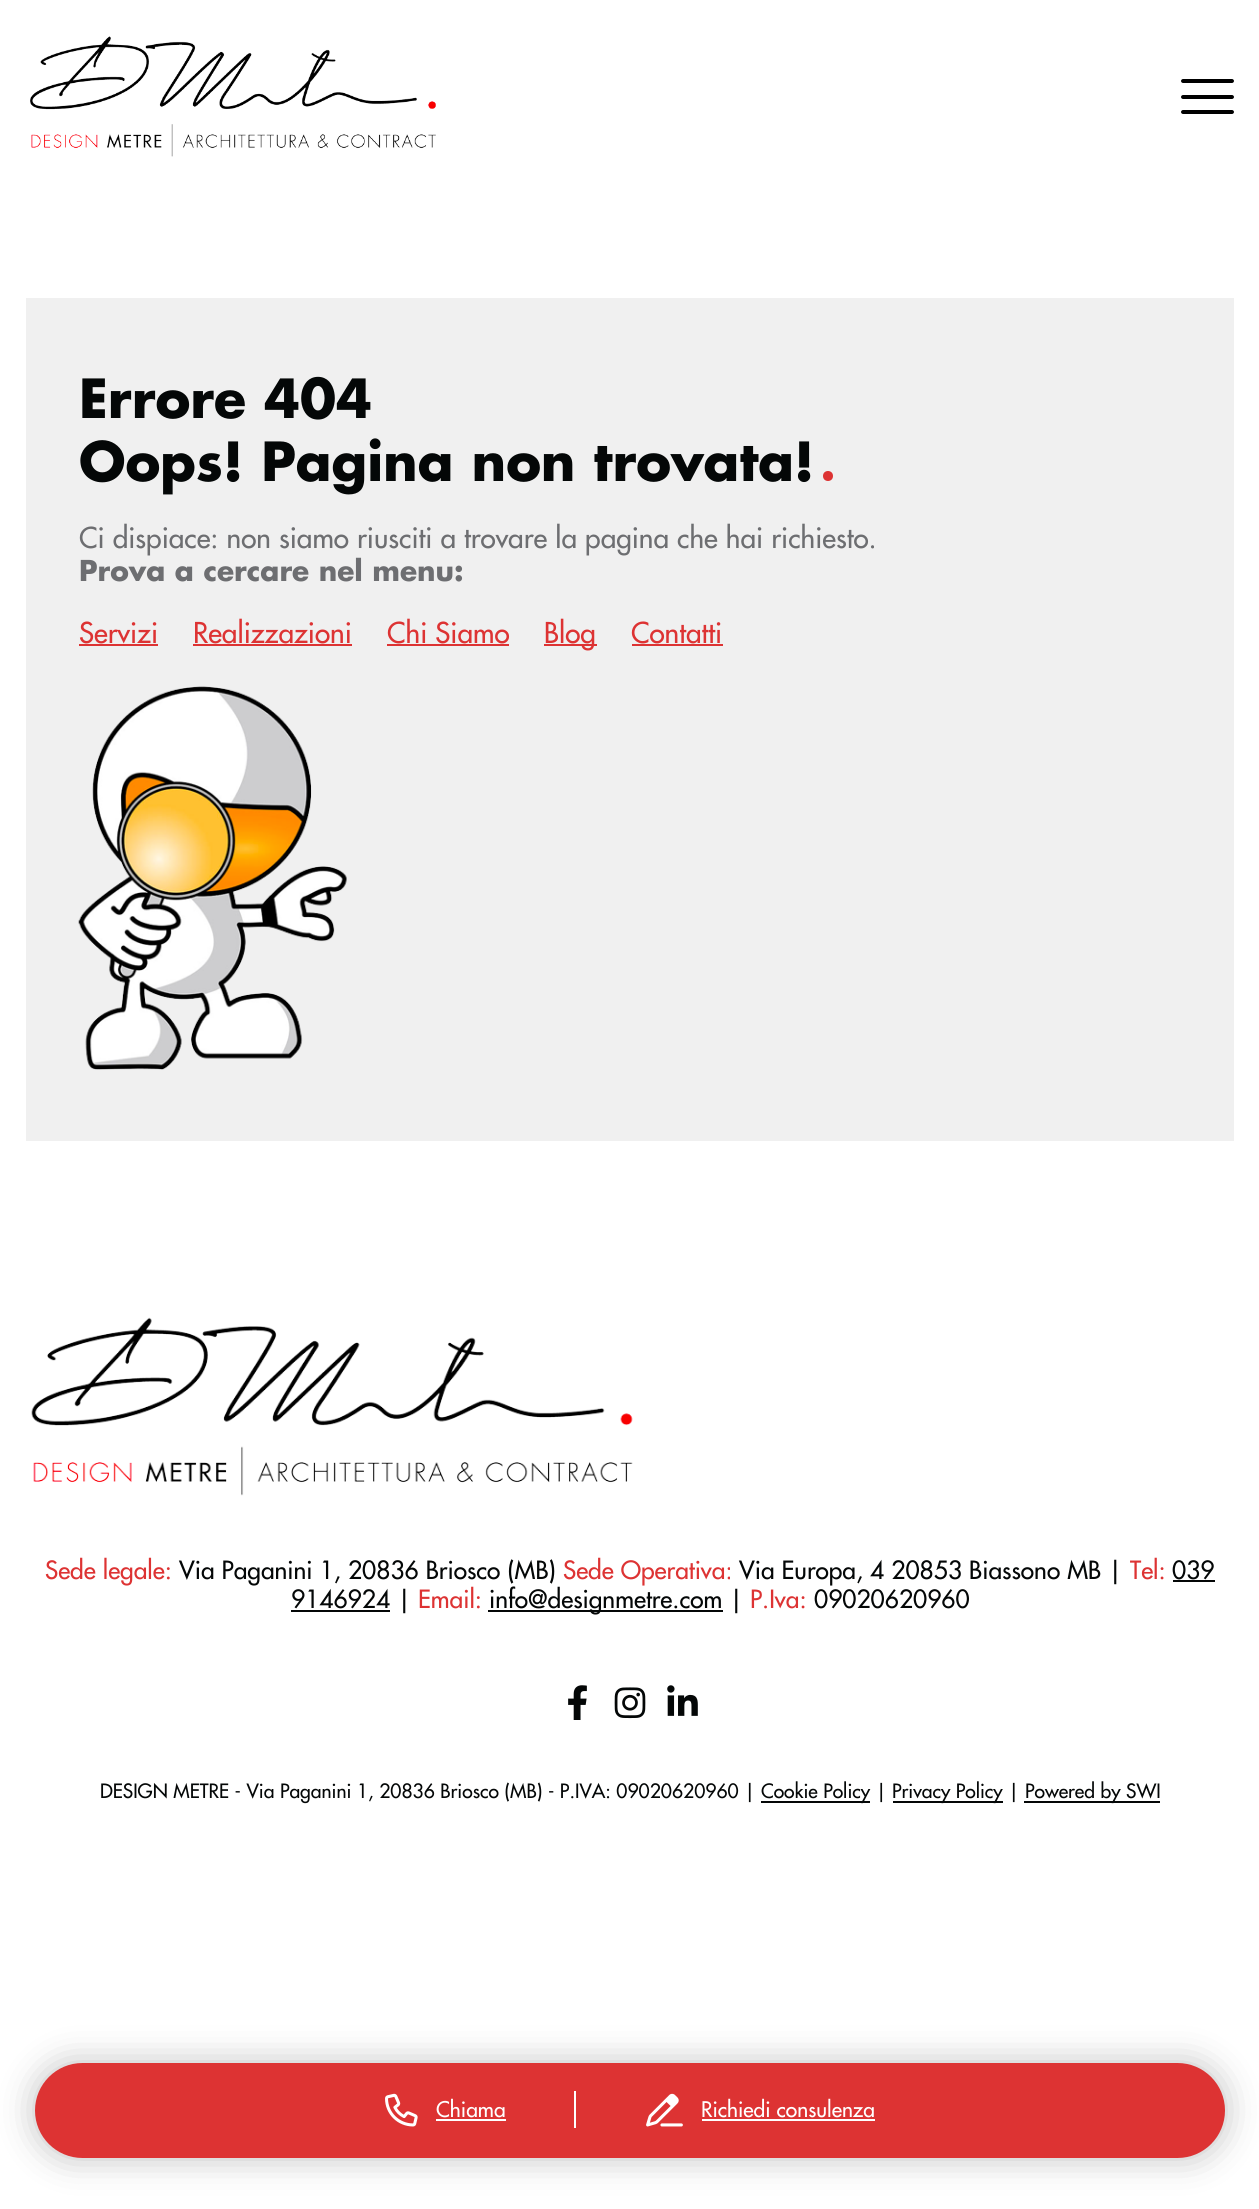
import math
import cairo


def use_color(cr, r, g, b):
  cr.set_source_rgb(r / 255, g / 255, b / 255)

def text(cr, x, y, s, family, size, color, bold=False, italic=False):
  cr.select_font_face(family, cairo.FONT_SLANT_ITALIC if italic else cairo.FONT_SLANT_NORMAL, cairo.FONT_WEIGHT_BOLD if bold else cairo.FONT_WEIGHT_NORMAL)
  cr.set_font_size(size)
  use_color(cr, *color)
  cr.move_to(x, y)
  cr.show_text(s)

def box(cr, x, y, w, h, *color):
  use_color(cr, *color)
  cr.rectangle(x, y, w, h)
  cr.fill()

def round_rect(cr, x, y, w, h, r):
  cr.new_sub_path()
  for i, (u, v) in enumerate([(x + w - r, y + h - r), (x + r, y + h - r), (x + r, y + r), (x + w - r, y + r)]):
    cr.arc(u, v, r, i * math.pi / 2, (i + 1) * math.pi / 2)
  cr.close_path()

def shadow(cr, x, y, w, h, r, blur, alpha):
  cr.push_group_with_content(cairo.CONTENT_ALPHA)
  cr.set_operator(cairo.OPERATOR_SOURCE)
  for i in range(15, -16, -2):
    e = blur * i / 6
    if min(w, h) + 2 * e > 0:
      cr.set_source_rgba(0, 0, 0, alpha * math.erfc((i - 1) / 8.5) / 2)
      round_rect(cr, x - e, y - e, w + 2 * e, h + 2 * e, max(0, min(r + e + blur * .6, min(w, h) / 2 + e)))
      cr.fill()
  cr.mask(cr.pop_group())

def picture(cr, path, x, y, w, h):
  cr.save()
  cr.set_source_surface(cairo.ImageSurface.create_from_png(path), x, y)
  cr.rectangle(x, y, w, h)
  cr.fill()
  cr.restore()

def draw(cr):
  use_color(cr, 255, 255, 255)
  cr.paint()
  picture(cr, "img_01.png", 30, 36, 406, 121)
  use_color(cr, 0, 0, 0)
  cr.new_path()
  cr.move_to(1183, 79)
  cr.line_to(1208, 79)
  cr.line_to(1208, 83)
  cr.line_to(1183, 83)
  cr.curve_to(1182, 83, 1181, 82, 1181, 81)
  cr.curve_to(1181, 80, 1182, 79, 1183, 79)
  cr.close_path()
  cr.fill()
  cr.new_path()
  cr.move_to(1208, 79)
  cr.line_to(1232, 79)
  cr.curve_to(1233, 79, 1234, 80, 1234, 81)
  cr.curve_to(1234, 82, 1233, 83, 1232, 83)
  cr.line_to(1208, 83)
  cr.close_path()
  cr.fill()
  cr.new_path()
  cr.move_to(1183, 95)
  cr.line_to(1208, 95)
  cr.line_to(1208, 99)
  cr.line_to(1183, 99)
  cr.curve_to(1182, 99, 1181, 98, 1181, 97)
  cr.curve_to(1181, 96, 1182, 95, 1183, 95)
  cr.close_path()
  cr.fill()
  cr.new_path()
  cr.move_to(1208, 95)
  cr.line_to(1232, 95)
  cr.curve_to(1233, 95, 1234, 96, 1234, 97)
  cr.curve_to(1234, 98, 1233, 99, 1232, 99)
  cr.line_to(1208, 99)
  cr.close_path()
  cr.fill()
  cr.new_path()
  cr.move_to(1183, 110)
  cr.line_to(1208, 110)
  cr.line_to(1208, 114)
  cr.line_to(1183, 114)
  cr.curve_to(1182, 114, 1181, 113, 1181, 112)
  cr.curve_to(1181, 111, 1182, 110, 1183, 110)
  cr.close_path()
  cr.fill()
  cr.new_path()
  cr.move_to(1208, 110)
  cr.line_to(1232, 110)
  cr.curve_to(1233, 110, 1234, 111, 1234, 112)
  cr.curve_to(1234, 113, 1233, 114, 1232, 114)
  cr.line_to(1208, 114)
  cr.close_path()
  cr.fill()
  box(cr, 26, 298, 1208, 843, 240, 240, 240)
  use_color(cr, 221, 51, 51)
  cr.arc(828, 476, 5, 0, 2 * math.pi)
  cr.fill()
  box(cr, 79, 644, 79, 2, 221, 51, 51)
  box(cr, 193, 644, 159, 2, 221, 51, 51)
  box(cr, 387, 644, 122, 2, 221, 51, 51)
  box(cr, 544, 644, 53, 2, 221, 51, 51)
  box(cr, 632, 644, 91, 2, 221, 51, 51)
  picture(cr, "img_02.png", 78, 686, 269, 384)
  picture(cr, "img_03.png", 31, 1317, 602, 179)
  box(cr, 1173, 1580, 42, 2, 4, 7, 7)
  box(cr, 291, 1610, 99, 2, 4, 7, 7)
  box(cr, 488, 1610, 235, 2, 4, 7, 7)
  picture(cr, "img_04.png", 568, 1685, 19, 35)
  picture(cr, "img_05.png", 614, 1687, 32, 32)
  picture(cr, "img_06.png", 667, 1685, 31, 31)
  box(cr, 761, 1801, 109, 2, 4, 7, 7)
  box(cr, 893, 1801, 110, 2, 4, 7, 7)
  box(cr, 1024, 1801, 136, 2, 4, 7, 7)
  use_color(cr, 0, 0, 0)
  shadow(cr, 35, 2063, 1190, 95, 47.5, 17.5, 0.25)
  use_color(cr, 221, 51, 51)
  round_rect(cr, 35, 2063, 1190, 95, 47.5)
  cr.fill()
  picture(cr, "img_07.png", 385, 2093, 33, 34)
  box(cr, 436, 2119, 70, 2, 255, 255, 255)
  box(cr, 574, 2091, 2, 37, 255, 255, 255)
  picture(cr, "img_08.png", 646, 2093, 37, 34)
  box(cr, 702, 2119, 173, 2, 255, 255, 255)
  text(cr, 79, 418, "Errore 404", "Futura", 52.5, (4, 7, 7), bold=True)
  text(cr, 79, 481, "Oops! Pagina non trovata!", "Futura", 52.5, (4, 7, 7), bold=True)
  text(cr, 79, 548, "Ci dispiace: non siamo riusciti a trovare la pagina che hai richiesto.", "Futura Medium", 28, (109, 110, 113))
  text(cr, 79, 581, "Prova a cercare nel menu:", "Futura", 28, (109, 110, 113), bold=True)
  text(cr, 79, 643, "Servizi", "Futura Medium", 28, (221, 51, 51))
  text(cr, 193, 643, "Realizzazioni", "Futura Medium", 28, (221, 51, 51))
  text(cr, 387, 643, "Chi Siamo", "Futura Medium", 28, (221, 51, 51))
  text(cr, 544, 643, "Blog", "Futura Medium", 28, (221, 51, 51))
  text(cr, 631, 643, "Contatti", "Futura Medium", 28, (221, 51, 51))
  text(cr, 45, 1579, "Sede legale:", "Futura Medium", 24.5, (221, 51, 51))
  text(cr, 179, 1579, "Via Paganini 1, 20836 Briosco (MB)", "Futura Medium", 24.5, (4, 7, 7))
  text(cr, 563, 1579, "Sede Operativa:", "Futura Medium", 24.5, (221, 51, 51))
  text(cr, 739, 1579, "Via Europa, 4 20853 Biassono MB |", "Futura Medium", 24.5, (4, 7, 7))
  text(cr, 1130, 1579, "Tel:", "Futura Medium", 24.5, (221, 51, 51))
  text(cr, 1172, 1579, "039", "Futura Medium", 24.5, (4, 7, 7))
  text(cr, 291, 1608, "9146924 |", "Futura Medium", 24.5, (4, 7, 7))
  text(cr, 418, 1608, "Email:", "Futura Medium", 24.5, (221, 51, 51))
  text(cr, 489, 1608, "info@designmetre.com |", "Futura Medium", 24.5, (4, 7, 7))
  text(cr, 750, 1608, "P.Iva:", "Futura Medium", 24.5, (221, 51, 51))
  text(cr, 814, 1608, "09020620960", "Futura Medium", 24.5, (4, 7, 7))
  text(cr, 100, 1798, "DESIGN METRE - Via Paganini 1, 20836 Briosco (MB) - P.IVA: 09020620960 |", "Futura Medium", 19.25, (4, 7, 7))
  text(cr, 761, 1798, "Cookie Policy |", "Futura Medium", 19.25, (4, 7, 7))
  text(cr, 892, 1798, "Privacy Policy |", "Futura Medium", 19.25, (4, 7, 7))
  text(cr, 1025, 1798, "Powered by SWI", "Futura Medium", 19.25, (4, 7, 7))
  text(cr, 436, 2117, "Chiama", "Futura Medium", 21, (255, 255, 255))
  text(cr, 701, 2117, "Richiedi consulenza", "Futura Medium", 21, (255, 255, 255))


surface = cairo.ImageSurface(cairo.FORMAT_RGB24, 1259, 2209)
cr = cairo.Context(surface)
options = cairo.FontOptions()
options.set_hint_metrics(cairo.HINT_METRICS_OFF)
options.set_hint_style(cairo.HINT_STYLE_NONE)
cr.set_font_options(options)
cr.set_miter_limit(4)
draw(cr)
surface.write_to_png("out.png")
